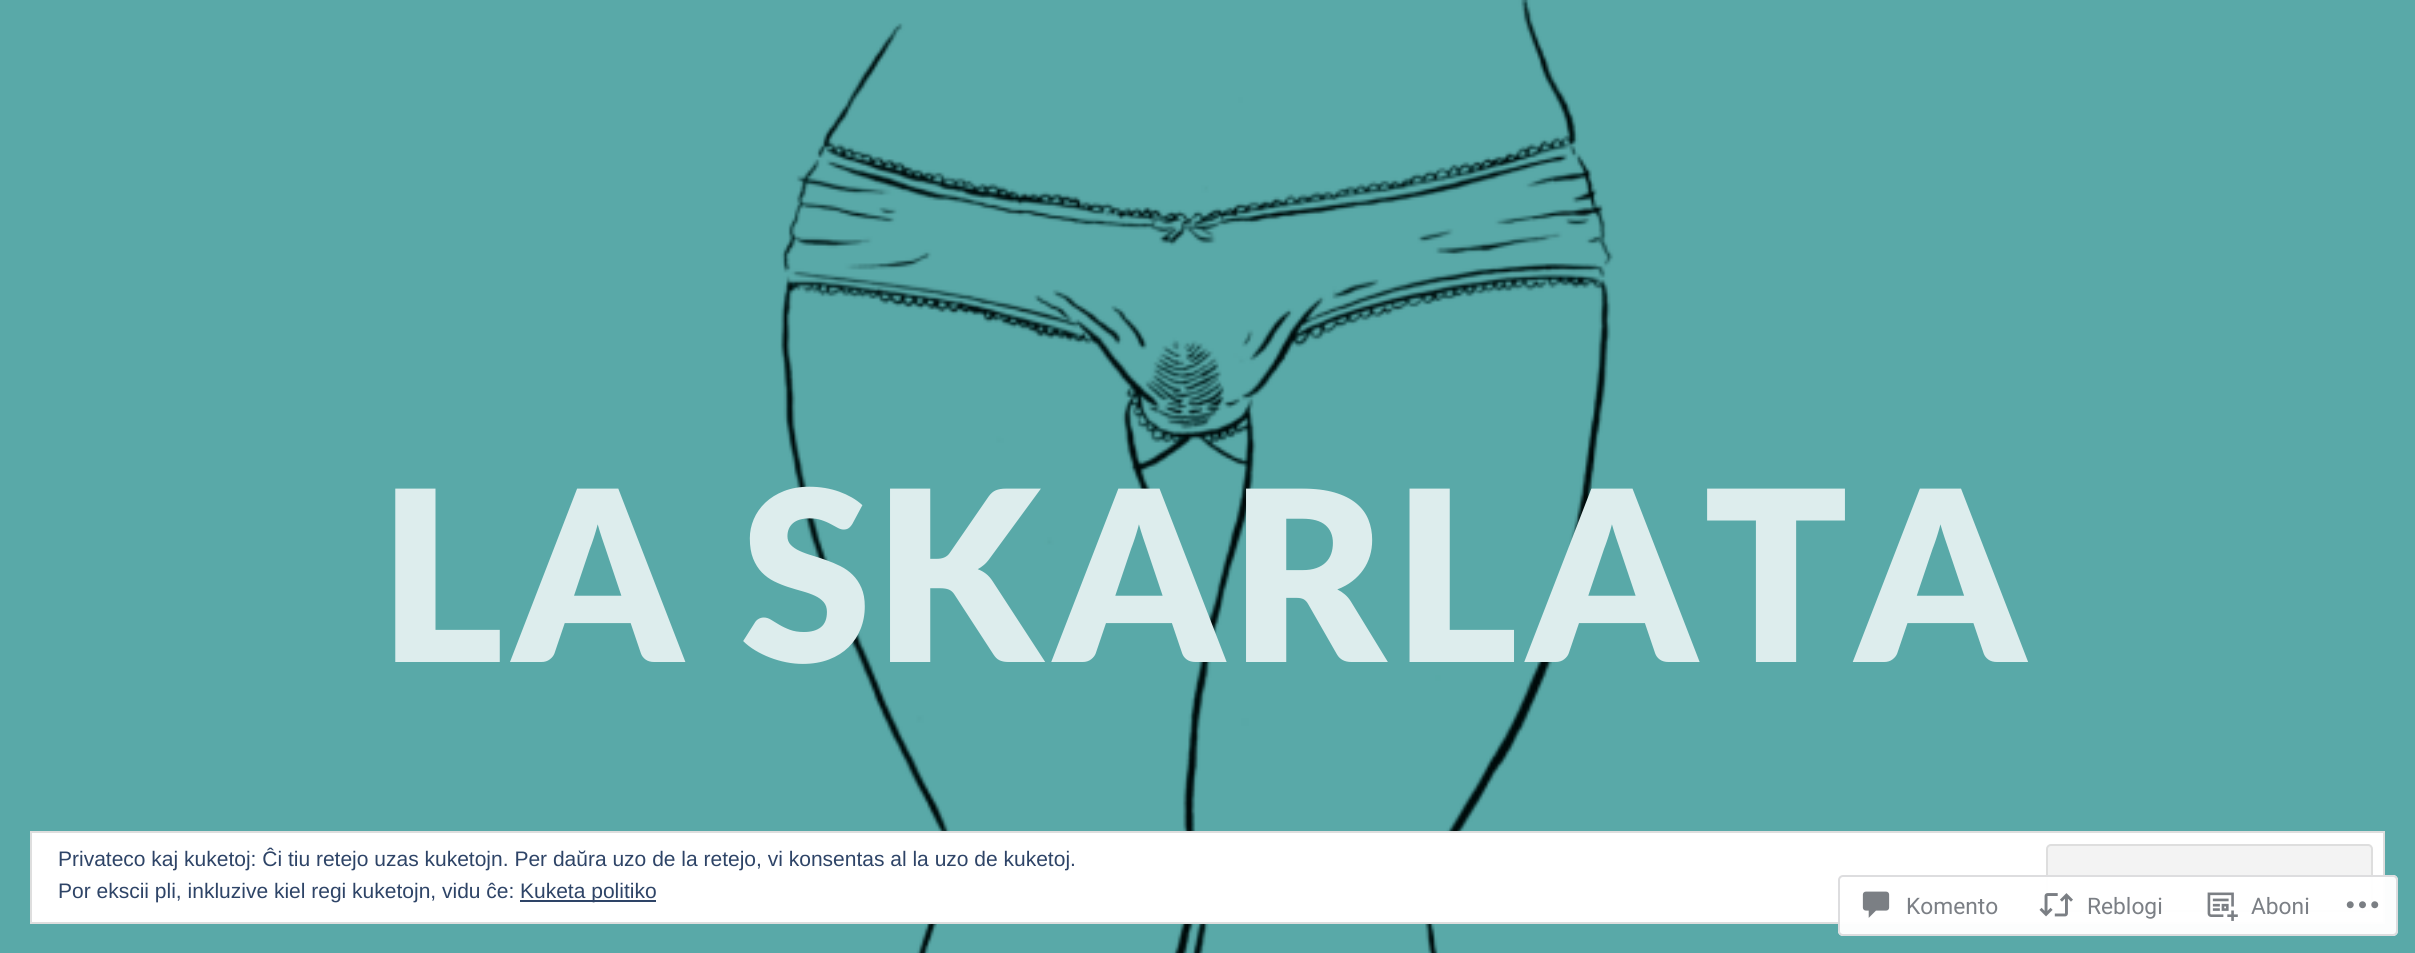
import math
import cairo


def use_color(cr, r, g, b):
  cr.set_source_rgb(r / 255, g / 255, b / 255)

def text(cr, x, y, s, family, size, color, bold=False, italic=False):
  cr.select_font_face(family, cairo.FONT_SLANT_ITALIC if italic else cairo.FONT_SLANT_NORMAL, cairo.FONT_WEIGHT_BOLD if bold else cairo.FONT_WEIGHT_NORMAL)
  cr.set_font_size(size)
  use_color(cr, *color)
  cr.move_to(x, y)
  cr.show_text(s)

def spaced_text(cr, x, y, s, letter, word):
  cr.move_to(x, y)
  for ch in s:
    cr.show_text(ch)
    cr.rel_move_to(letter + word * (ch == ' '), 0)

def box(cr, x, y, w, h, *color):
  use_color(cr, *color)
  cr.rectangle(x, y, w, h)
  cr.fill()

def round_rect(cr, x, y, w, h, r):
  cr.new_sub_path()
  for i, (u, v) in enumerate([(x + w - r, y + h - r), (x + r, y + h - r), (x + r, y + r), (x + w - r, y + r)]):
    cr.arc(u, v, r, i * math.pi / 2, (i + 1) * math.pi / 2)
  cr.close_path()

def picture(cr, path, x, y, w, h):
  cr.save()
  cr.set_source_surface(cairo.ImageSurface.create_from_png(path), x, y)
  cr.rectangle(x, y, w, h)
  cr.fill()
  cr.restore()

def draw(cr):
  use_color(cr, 255, 255, 255)
  cr.paint()
  picture(cr, "img_01.png", 0, 0, 2415, 953)
  use_color(cr, 255, 255, 255)
  cr.rectangle(31, 832, 2353, 91)
  cr.fill_preserve()
  use_color(cr, 222, 222, 222)
  cr.stroke()
  use_color(cr, 243, 243, 243)
  round_rect(cr, 2047, 845, 325, 66, 4)
  cr.fill_preserve()
  use_color(cr, 222, 222, 222)
  cr.stroke()
  box(cr, 520, 900, 136, 2, 46, 68, 103)
  cr.set_source_rgba(1, 1, 1, 0.98)
  round_rect(cr, 1838, 875, 560, 61, 5)
  cr.fill()
  round_rect(cr, 1839, 876, 558, 59, 4)
  cr.set_source_rgba(0.863, 0.863, 0.871, 0.98)
  cr.stroke()
  picture(cr, "img_02.png", 1862, 891, 28, 27)
  picture(cr, "img_03.png", 2039, 893, 34, 24)
  picture(cr, "img_04.png", 2207, 892, 31, 29)
  picture(cr, "img_05.png", 2346, 901, 33, 8)
  cr.select_font_face("Lato Black")
  cr.set_font_size(238)
  use_color(cr, 221, 237, 237)
  spaced_text(cr, 381, 662, "LA SKARLATA", 5.25, 0)
  text(cr, 58, 866, "Privateco kaj kuketoj: Ĉi tiu retejo uzas kuketojn. Per daŭra uzo de la retejo, vi konsentas al la uzo de kuketoj.", "Liberation Sans", 21, (46, 68, 103))
  text(cr, 58, 898, "Por ekscii pli, inkluzive kiel regi kuketojn, vidu ĉe:", "Liberation Sans", 21, (46, 68, 103))
  text(cr, 520, 898, "Kuketa politiko", "Liberation Sans", 21, (46, 68, 103))
  text(cr, 1906, 914, "Komento", "Roboto", 22.75, (123, 127, 133))
  text(cr, 2087, 914, "Reblogi", "Roboto", 22.75, (123, 127, 133))
  text(cr, 2251, 914, "Aboni", "Roboto", 22.75, (123, 127, 133))


surface = cairo.ImageSurface(cairo.FORMAT_RGB24, 2415, 953)
cr = cairo.Context(surface)
options = cairo.FontOptions()
options.set_hint_metrics(cairo.HINT_METRICS_OFF)
options.set_hint_style(cairo.HINT_STYLE_NONE)
cr.set_font_options(options)
cr.set_miter_limit(4)
draw(cr)
surface.write_to_png("out.png")
